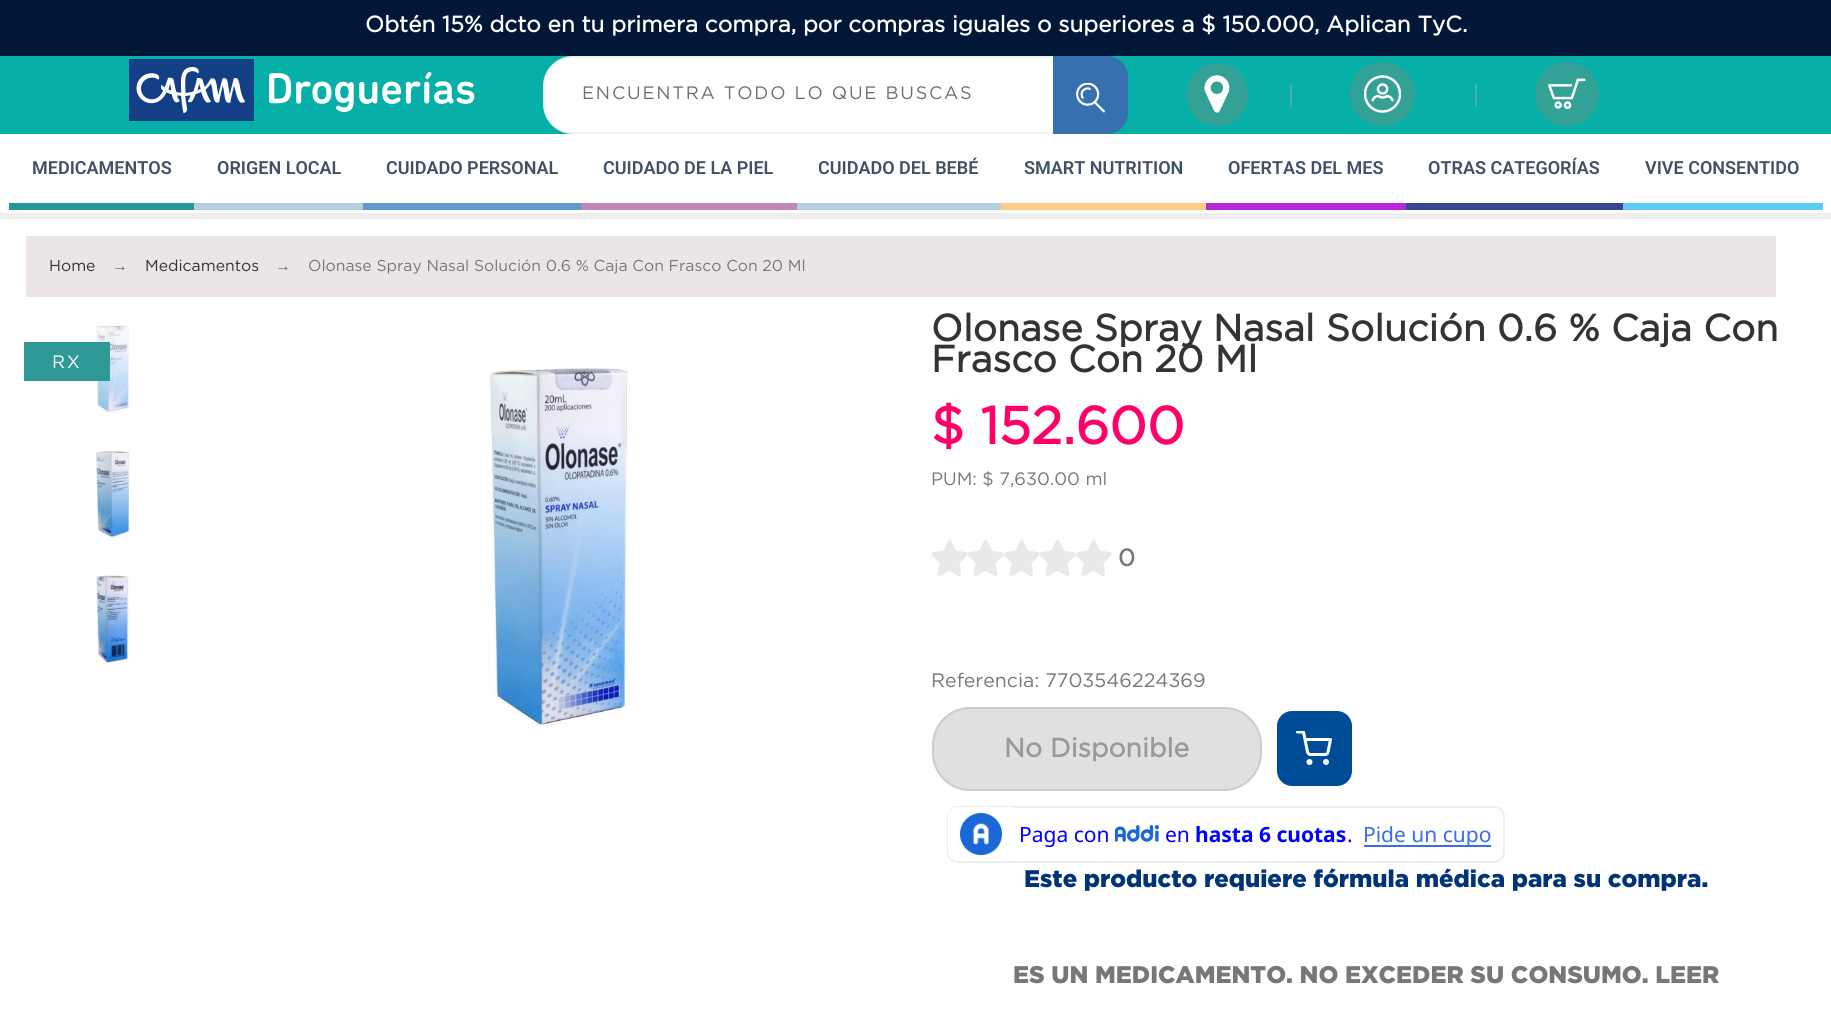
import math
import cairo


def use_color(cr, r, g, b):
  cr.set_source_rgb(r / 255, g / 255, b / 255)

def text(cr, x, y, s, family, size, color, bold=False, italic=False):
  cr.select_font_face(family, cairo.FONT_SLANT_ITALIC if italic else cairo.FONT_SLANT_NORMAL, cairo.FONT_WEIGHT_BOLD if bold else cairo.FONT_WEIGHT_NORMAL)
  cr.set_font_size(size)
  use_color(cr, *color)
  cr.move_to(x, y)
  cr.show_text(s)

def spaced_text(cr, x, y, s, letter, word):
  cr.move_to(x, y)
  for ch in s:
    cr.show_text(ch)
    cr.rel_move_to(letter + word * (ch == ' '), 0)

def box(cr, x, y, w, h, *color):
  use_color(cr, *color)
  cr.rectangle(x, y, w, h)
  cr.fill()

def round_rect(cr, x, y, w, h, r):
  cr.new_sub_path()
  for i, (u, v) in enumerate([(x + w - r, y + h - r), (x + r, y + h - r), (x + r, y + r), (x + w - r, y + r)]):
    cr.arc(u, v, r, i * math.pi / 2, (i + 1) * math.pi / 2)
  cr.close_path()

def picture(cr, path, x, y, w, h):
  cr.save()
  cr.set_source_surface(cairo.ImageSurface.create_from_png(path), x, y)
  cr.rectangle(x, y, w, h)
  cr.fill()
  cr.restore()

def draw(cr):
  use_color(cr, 255, 255, 255)
  cr.paint()
  box(cr, 0, 213, 1831, 6, 238, 238, 238)
  box(cr, 0, 0, 1831, 56, 1, 23, 56)
  box(cr, 0, 56, 1831, 78, 6, 175, 167)
  picture(cr, "img_01.png", 129, 59, 346, 62)
  use_color(cr, 255, 255, 255)
  round_rect(cr, 544, 57, 583, 76, 29)
  cr.fill_preserve()
  use_color(cr, 242, 242, 242)
  cr.stroke()
  use_color(cr, 55, 112, 175)
  cr.new_path()
  cr.move_to(1053, 56)
  cr.line_to(1107, 56)
  cr.curve_to(1118.5, 56, 1128, 65.5, 1128, 77)
  cr.line_to(1128, 113)
  cr.curve_to(1128, 124.5, 1118.5, 134, 1107, 134)
  cr.line_to(1053, 134)
  cr.close_path()
  cr.fill()
  picture(cr, "img_02.png", 1076, 83, 29, 30)
  use_color(cr, 51, 161, 150)
  round_rect(cr, 1187, 63, 61, 63, 30.5)
  cr.fill()
  picture(cr, "img_03.png", 1204, 75, 26, 38)
  round_rect(cr, 1350, 62, 65, 64, 32)
  cr.fill()
  box(cr, 1290, 84, 2, 23, 71, 176, 169)
  picture(cr, "img_04.png", 1364, 75, 37, 38)
  use_color(cr, 51, 161, 150)
  cr.arc(1567, 94, 32, 0, 2 * math.pi)
  cr.fill()
  box(cr, 1475, 84, 2, 23, 71, 176, 169)
  picture(cr, "img_05.png", 1548, 78, 38, 31)
  box(cr, 9, 203, 185, 7, 32, 153, 151)
  box(cr, 194, 203, 169, 7, 181, 208, 220)
  box(cr, 363, 203, 218, 7, 93, 154, 207)
  box(cr, 581, 203, 216, 7, 192, 136, 186)
  box(cr, 797, 203, 204, 7, 181, 208, 220)
  box(cr, 1001, 203, 205, 7, 255, 204, 130)
  box(cr, 1206, 203, 200, 7, 183, 40, 216)
  box(cr, 1406, 203, 217, 7, 57, 69, 147)
  box(cr, 1623, 203, 200, 7, 90, 205, 246)
  box(cr, 26, 236, 1750, 61, 236, 229, 229)
  picture(cr, "img_06.png", 96, 325, 33, 88)
  box(cr, 24, 342, 86, 39, 47, 153, 151)
  picture(cr, "img_07.png", 96, 451, 34, 88)
  picture(cr, "img_08.png", 96, 575, 33, 89)
  picture(cr, "img_09.png", 489, 367, 139, 358)
  picture(cr, "img_10.png", 932, 540, 36, 36)
  picture(cr, "img_10.png", 968, 540, 36, 36)
  picture(cr, "img_10.png", 1004, 540, 36, 36)
  picture(cr, "img_10.png", 1040, 540, 36, 36)
  picture(cr, "img_10.png", 1076, 540, 36, 36)
  use_color(cr, 224, 224, 224)
  round_rect(cr, 933, 708, 328, 82, 37)
  cr.fill_preserve()
  use_color(cr, 204, 204, 204)
  cr.stroke()
  use_color(cr, 0, 76, 151)
  round_rect(cr, 1277, 711, 75, 75, 15)
  cr.fill()
  cr.arc(1309.5, 762, 1.5, 0, 2 * math.pi)
  use_color(cr, 255, 255, 255)
  cr.set_line_width(3)
  cr.stroke()
  cr.arc(1326, 762, 1.5, 0, 2 * math.pi)
  cr.stroke()
  cr.save()
  cr.rectangle(1296, 731, 36, 36)
  cr.clip()
  cr.new_path()
  cr.move_to(1297.5, 732)
  cr.line_to(1303.5, 732)
  cr.line_to(1307.5, 752)
  cr.curve_to(1308, 753.5, 1309, 754.5, 1310.5, 754.5)
  cr.line_to(1325, 754.5)
  cr.curve_to(1326.5, 754.5, 1328, 753.5, 1328, 752)
  cr.line_to(1330.5, 739.5)
  cr.line_to(1305, 739.5)
  cr.set_line_cap(cairo.LINE_CAP_ROUND)
  cr.set_line_join(cairo.LINE_JOIN_ROUND)
  cr.stroke()
  cr.restore()
  round_rect(cr, 948, 807, 556, 55, 10)
  use_color(cr, 235, 236, 237)
  cr.set_line_width(2)
  cr.stroke()
  use_color(cr, 255, 255, 255)
  cr.new_path()
  cr.move_to(957, 807)
  cr.line_to(1014, 807)
  cr.line_to(1014, 861)
  cr.line_to(957, 861)
  cr.curve_to(952, 861, 948, 857, 948, 852)
  cr.line_to(948, 816)
  cr.curve_to(948, 811, 952, 807, 957, 807)
  cr.close_path()
  cr.fill()
  picture(cr, "img_11.png", 960, 813, 42, 42)
  picture(cr, "img_12.png", 1115, 825, 44, 17)
  box(cr, 1364, 845, 127, 2, 60, 106, 240)
  text(cr, 365, 32, "Obtén 15% dcto en tu primera compra, por compras iguales o superiores a $ 150.000, Aplican TyC.", "Gotham", 22.5, (255, 255, 255), bold=True)
  cr.select_font_face("Gotham")
  cr.set_font_size(18)
  use_color(cr, 108, 110, 111)
  spaced_text(cr, 582, 99, "ENCUENTRA TODO LO QUE BUSCAS", 1.8, 0)
  text(cr, 32, 174, "MEDICAMENTOS", "Roboto SemiBold", 18, (65, 80, 101))
  text(cr, 217, 174, "ORIGEN LOCAL", "Roboto SemiBold", 18, (65, 80, 101))
  text(cr, 386, 174, "CUIDADO PERSONAL", "Roboto SemiBold", 18, (65, 80, 101))
  text(cr, 603, 174, "CUIDADO DE LA PIEL", "Roboto SemiBold", 18, (65, 80, 101))
  cr.save()
  cr.rectangle(819, 141, 159, 54)
  cr.clip()
  text(cr, 818, 174, "CUIDADO DEL BEBÉ", "Roboto SemiBold", 18, (65, 80, 101))
  cr.restore()
  text(cr, 1024, 174, "SMART NUTRITION", "Roboto SemiBold", 18, (65, 80, 101))
  text(cr, 1228, 174, "OFERTAS DEL MES", "Roboto SemiBold", 18, (65, 80, 101))
  text(cr, 1428, 174, "OTRAS CATEGORÍAS", "Roboto SemiBold", 18, (65, 80, 101))
  text(cr, 1645, 174, "VIVE CONSENTIDO", "Roboto SemiBold", 18, (65, 80, 101))
  text(cr, 49, 271, "Home", "Gotham", 15.75, (51, 51, 51))
  text(cr, 112, 271, "→", "Liberation Sans", 15.75, (102, 102, 102))
  text(cr, 145, 271, "Medicamentos", "Gotham", 15.75, (51, 51, 51))
  text(cr, 275, 271, "→", "Liberation Sans", 15.75, (102, 102, 102))
  text(cr, 308, 271, "Olonase Spray Nasal Solución 0.6 % Caja Con Frasco Con 20 Ml", "Gotham", 15.75, (119, 119, 119))
  cr.set_font_size(18)
  use_color(cr, 255, 255, 255)
  spaced_text(cr, 52, 368, "RX", 1.8, 0)
  text(cr, 931, 341, "Olonase Spray Nasal Solución 0.6 % Caja Con", "Gotham", 37.5, (51, 51, 51), bold=True)
  text(cr, 931, 372, "Frasco Con 20 Ml", "Gotham", 37.5, (51, 51, 51), bold=True)
  text(cr, 931, 444, "$ 152.600", "Gotham", 52.5, (255, 0, 104), bold=True)
  text(cr, 931, 485, "PUM: $ 7,630.00 ml", "Gotham", 18, (119, 119, 119))
  text(cr, 1118, 566, "0", "Gotham", 24, (119, 119, 119), bold=True)
  text(cr, 931, 687, "Referencia: 7703546224369", "Gotham", 19.5, (119, 119, 119))
  text(cr, 1004, 757, "No Disponible", "Gotham", 26.5, (153, 153, 153), bold=True)
  text(cr, 1019, 842, "Paga con", "Noto Sans", 21, (0, 0, 255))
  text(cr, 1165, 842, "en", "Noto Sans", 21, (0, 0, 255))
  text(cr, 1195, 842, "hasta 6 cuotas", "Noto Sans", 21, (0, 0, 255), bold=True)
  text(cr, 1347, 842, ".", "Noto Sans", 21, (0, 0, 255))
  text(cr, 1363, 842, "Pide un cupo", "Noto Sans", 21, (60, 106, 240))
  text(cr, 1024, 887, "Este producto requiere fórmula médica para su compra.", "Gotham Black", 24, (1, 51, 121))
  text(cr, 1013, 983, "ES UN MEDICAMENTO. NO EXCEDER SU CONSUMO. LEER", "Gotham Black", 24, (119, 119, 119))


surface = cairo.ImageSurface(cairo.FORMAT_RGB24, 1831, 1010)
cr = cairo.Context(surface)
options = cairo.FontOptions()
options.set_hint_metrics(cairo.HINT_METRICS_OFF)
options.set_hint_style(cairo.HINT_STYLE_NONE)
cr.set_font_options(options)
cr.set_miter_limit(4)
draw(cr)
surface.write_to_png("out.png")
